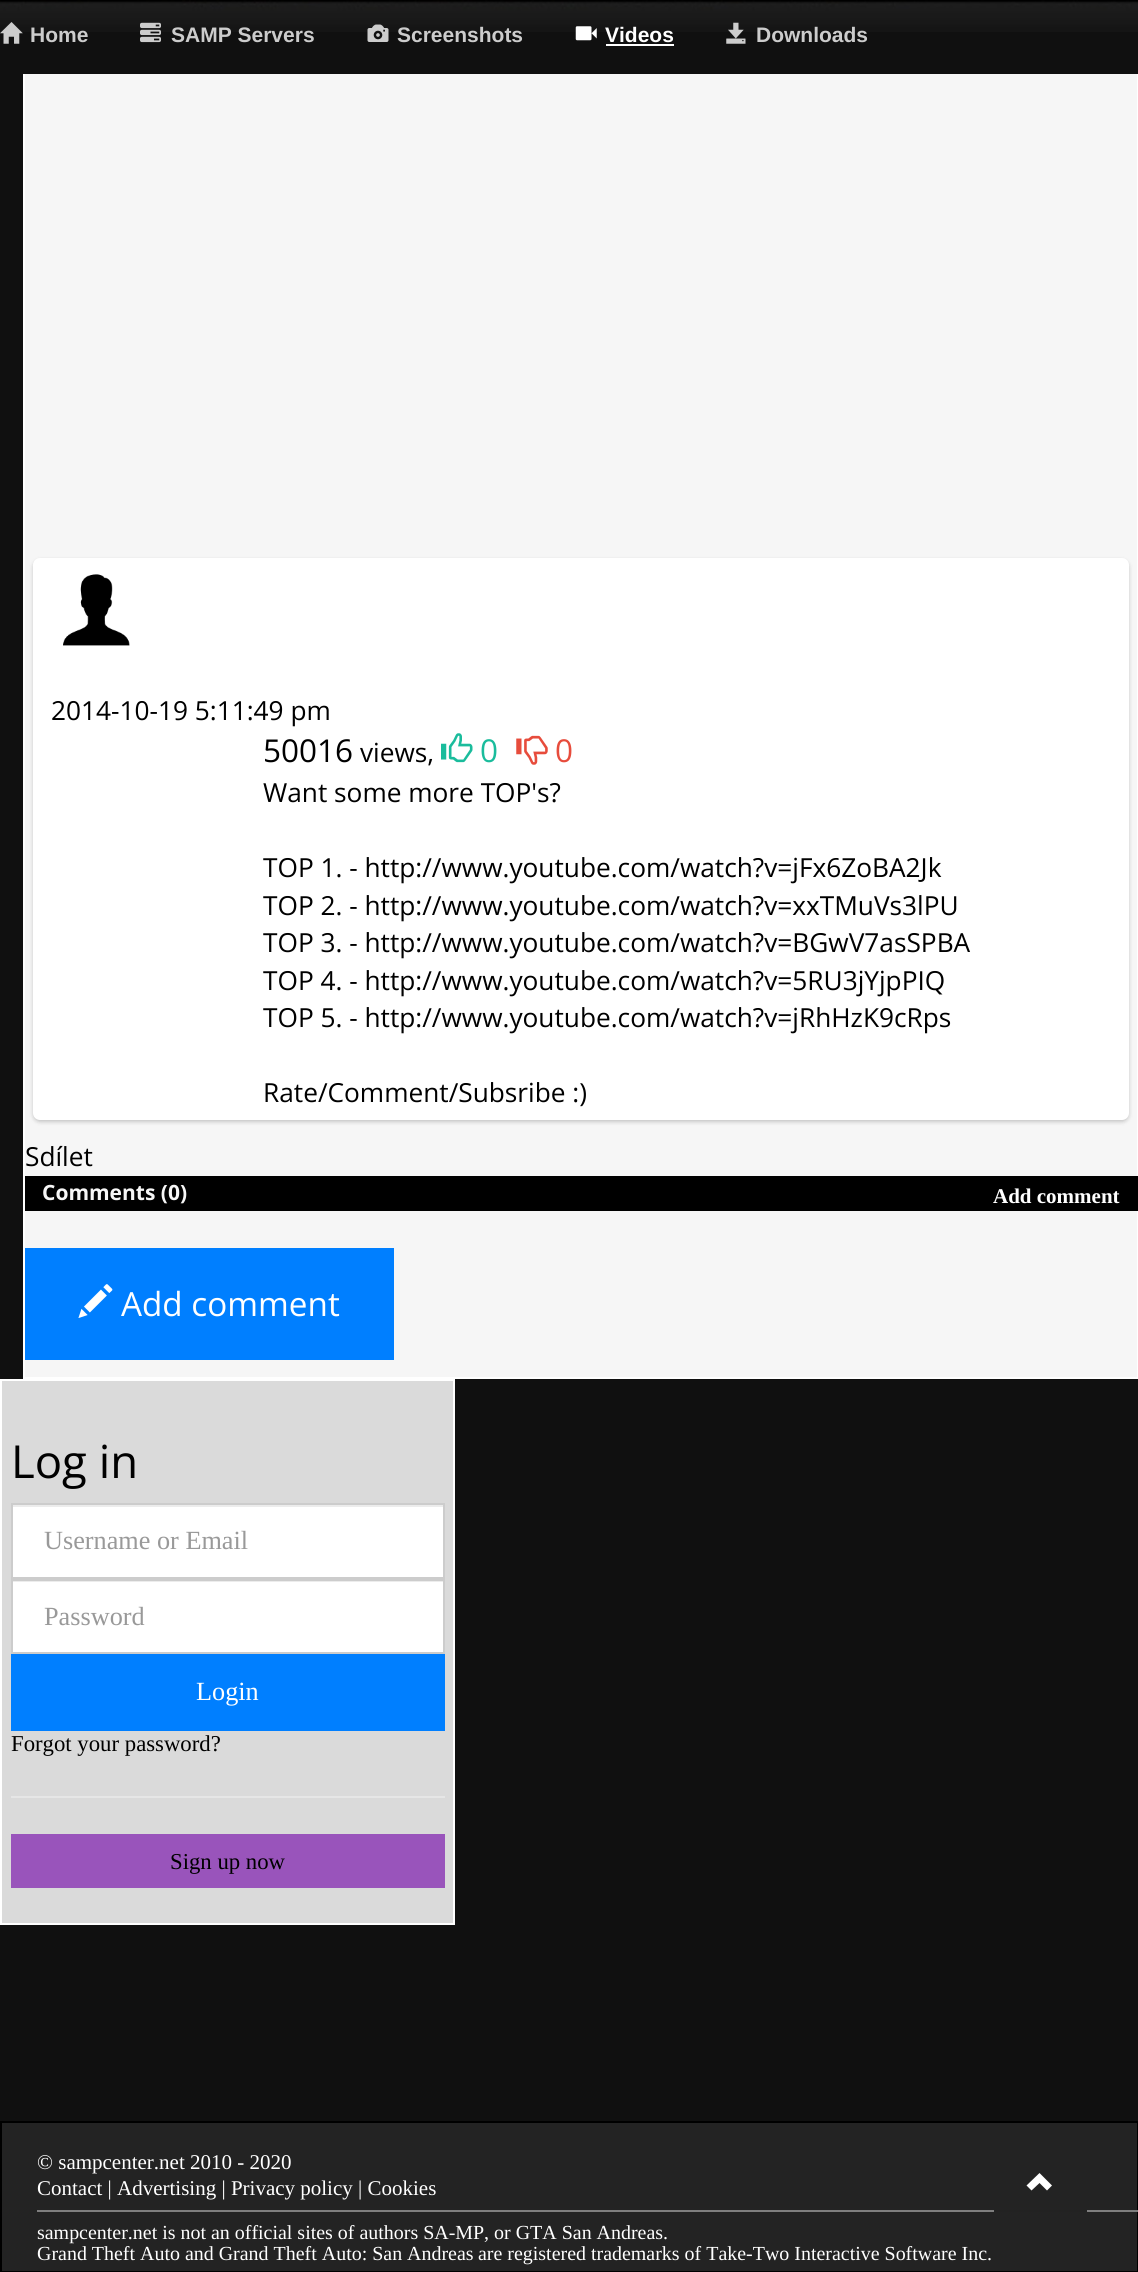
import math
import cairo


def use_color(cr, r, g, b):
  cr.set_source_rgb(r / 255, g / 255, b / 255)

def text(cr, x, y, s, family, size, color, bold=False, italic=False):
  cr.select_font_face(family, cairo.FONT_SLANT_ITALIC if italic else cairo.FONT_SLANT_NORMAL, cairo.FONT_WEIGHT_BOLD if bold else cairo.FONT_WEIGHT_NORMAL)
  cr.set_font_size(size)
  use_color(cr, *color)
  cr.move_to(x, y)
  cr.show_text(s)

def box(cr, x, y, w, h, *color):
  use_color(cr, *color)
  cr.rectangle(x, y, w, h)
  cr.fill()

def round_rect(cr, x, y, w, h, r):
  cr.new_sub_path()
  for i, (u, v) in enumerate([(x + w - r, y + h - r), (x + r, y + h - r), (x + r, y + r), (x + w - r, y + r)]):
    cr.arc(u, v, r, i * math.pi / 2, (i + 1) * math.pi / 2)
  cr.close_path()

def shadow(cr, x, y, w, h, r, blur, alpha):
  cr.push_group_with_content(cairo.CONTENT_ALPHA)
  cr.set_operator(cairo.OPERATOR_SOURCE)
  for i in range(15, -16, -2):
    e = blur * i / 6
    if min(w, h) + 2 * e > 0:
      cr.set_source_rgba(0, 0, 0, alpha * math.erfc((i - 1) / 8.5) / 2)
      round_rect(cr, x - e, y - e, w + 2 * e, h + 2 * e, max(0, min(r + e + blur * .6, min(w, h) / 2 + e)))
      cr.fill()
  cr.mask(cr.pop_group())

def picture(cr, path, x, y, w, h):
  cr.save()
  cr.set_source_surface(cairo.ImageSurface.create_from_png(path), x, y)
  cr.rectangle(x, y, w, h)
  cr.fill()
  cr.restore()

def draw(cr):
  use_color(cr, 16, 16, 16)
  cr.paint()
  box(cr, 25, 74, 1112, 1303, 246, 246, 246)
  cr.rectangle(24, -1, 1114, 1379)
  use_color(cr, 255, 255, 255)
  cr.stroke()
  box(cr, 23, 32, 1115, 42, 16, 16, 16)
  picture(cr, "img_01.png", 0, 0, 1138, 32)
  picture(cr, "img_02.png", 0, 22, 23, 22)
  picture(cr, "img_03.png", 140, 22, 21, 21)
  picture(cr, "img_04.png", 367, 24, 22, 18)
  picture(cr, "img_05.png", 575, 26, 22, 15)
  box(cr, 606, 44, 68, 2, 255, 255, 255)
  picture(cr, "img_06.png", 726, 22, 20, 22)
  use_color(cr, 0, 0, 0)
  shadow(cr, 33, 560, 1096, 562, 7, 2, 0.2)
  use_color(cr, 255, 255, 255)
  round_rect(cr, 33, 558, 1096, 562, 7)
  cr.fill()
  picture(cr, "img_07.png", 63, 574, 67, 72)
  picture(cr, "img_08.png", 441, 733, 32, 30)
  picture(cr, "img_09.png", 516, 735, 32, 30)
  box(cr, 25, 1176, 1113, 35, 0, 0, 0)
  box(cr, 25, 1248, 369, 112, 0, 127, 255)
  picture(cr, "img_10.png", 78, 1284, 35, 34)
  use_color(cr, 218, 218, 218)
  cr.rectangle(1, 1380, 453, 544)
  cr.fill_preserve()
  use_color(cr, 255, 255, 255)
  cr.stroke()
  box(cr, 13, 1507, 430, 70, 255, 255, 255)
  box(cr, 12, 1505, 431, 2, 236, 236, 236)
  cr.rectangle(12, 1504, 432, 74)
  use_color(cr, 204, 204, 204)
  cr.stroke()
  box(cr, 13, 1582, 430, 70, 255, 255, 255)
  box(cr, 12, 1581, 431, 1, 236, 236, 236)
  cr.rectangle(12, 1580, 432, 73)
  use_color(cr, 204, 204, 204)
  cr.stroke()
  box(cr, 11, 1654, 434, 77, 0, 127, 255)
  box(cr, 11, 1796, 434, 2, 230, 230, 230)
  box(cr, 11, 1834, 434, 54, 153, 84, 187)
  use_color(cr, 35, 35, 35)
  cr.rectangle(1, 2122, 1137, 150)
  cr.fill_preserve()
  use_color(cr, 0, 0, 0)
  cr.stroke()
  box(cr, 37, 2210, 1101, 2, 126, 126, 126)
  box(cr, 994, 2210, 93, 2, 34, 34, 34)
  use_color(cr, 255, 255, 255)
  cr.new_path()
  cr.move_to(1026.5, 2185.5)
  cr.line_to(1031.5, 2190.5)
  cr.line_to(1039.5, 2183)
  cr.line_to(1047, 2190.5)
  cr.line_to(1052, 2185.5)
  cr.line_to(1039.5, 2173)
  cr.close_path()
  cr.fill()
  text(cr, 30, 42, "Home", "Liberation Sans", 21, (204, 204, 204), bold=True)
  text(cr, 171, 42, "SAMP Servers", "Liberation Sans", 21, (204, 204, 204), bold=True)
  text(cr, 397, 42, "Screenshots", "Liberation Sans", 21, (204, 204, 204), bold=True)
  text(cr, 605, 42, "Videos", "Liberation Sans", 21, (255, 255, 255), bold=True)
  text(cr, 756, 42, "Downloads", "Liberation Sans", 21, (204, 204, 204), bold=True)
  text(cr, 51, 720, "2014-10-19 5:11:49 pm", "Open Sans", 26.25, (0, 0, 0))
  text(cr, 263, 762, "50016", "Open Sans", 31.5, (0, 0, 0))
  text(cr, 360, 762, "views,", "Open Sans", 26.25, (0, 0, 0))
  text(cr, 480, 762, "0", "Open Sans", 31.5, (26, 188, 156))
  text(cr, 555, 762, "0", "Open Sans", 31.5, (231, 76, 60))
  text(cr, 263, 802, "Want some more TOP's?", "Open Sans", 26.25, (0, 0, 0))
  text(cr, 263, 877, "TOP 1. - http://www.youtube.com/watch?v=jFx6ZoBA2Jk", "Open Sans", 26.25, (0, 0, 0))
  text(cr, 263, 915, "TOP 2. - http://www.youtube.com/watch?v=xxTMuVs3lPU", "Open Sans", 26.25, (0, 0, 0))
  text(cr, 263, 952, "TOP 3. - http://www.youtube.com/watch?v=BGwV7asSPBA", "Open Sans", 26.25, (0, 0, 0))
  text(cr, 263, 990, "TOP 4. - http://www.youtube.com/watch?v=5RU3jYjpPIQ", "Open Sans", 26.25, (0, 0, 0))
  text(cr, 263, 1027, "TOP 5. - http://www.youtube.com/watch?v=jRhHzK9cRps", "Open Sans", 26.25, (0, 0, 0))
  text(cr, 263, 1102, "Rate/Comment/Subsribe :)", "Open Sans", 26.25, (0, 0, 0))
  text(cr, 25, 1166, "Sdílet", "Open Sans", 26.25, (0, 0, 0))
  text(cr, 42, 1200, "Comments (0)", "Open Sans", 21, (246, 246, 246), bold=True)
  text(cr, 993, 1203, "Add comment", "Liberation Serif", 21, (255, 255, 255), bold=True)
  text(cr, 121, 1316, "Add comment", "Open Sans", 33.25, (255, 255, 255))
  text(cr, 11, 1478, "Log in", "Open Sans", 45.5, (0, 0, 0))
  text(cr, 44, 1549, "Username or Email", "Liberation Serif", 26.25, (153, 153, 153))
  text(cr, 44, 1625, "Password", "Liberation Serif", 26.25, (153, 153, 153))
  text(cr, 196, 1700, "Login", "Liberation Serif", 26.25, (255, 255, 255))
  text(cr, 11, 1751, "Forgot your password?", "Liberation Serif", 22.75, (0, 0, 0))
  text(cr, 170, 1869, "Sign up now", "Liberation Serif", 22.75, (0, 0, 0))
  text(cr, 37, 2169, "© sampcenter.net 2010 - 2020", "Liberation Serif", 21, (255, 255, 255))
  text(cr, 37, 2195, "Contact | Advertising | Privacy policy | Cookies", "Liberation Serif", 21, (255, 255, 255))
  text(cr, 37, 2239, "sampcenter.net is not an official sites of authors SA-MP, or GTA San Andreas.", "Liberation Serif", 19.95, (255, 255, 255))
  text(cr, 37, 2260, "Grand Theft Auto and Grand Theft Auto: San Andreas", "Liberation Serif", 19.95, (255, 255, 255))
  text(cr, 478, 2260, "are registered trademarks of Take-Two Interactive Software Inc.", "Liberation Serif", 19.95, (255, 255, 255))


surface = cairo.ImageSurface(cairo.FORMAT_RGB24, 1138, 2272)
cr = cairo.Context(surface)
options = cairo.FontOptions()
options.set_hint_metrics(cairo.HINT_METRICS_OFF)
options.set_hint_style(cairo.HINT_STYLE_NONE)
cr.set_font_options(options)
cr.set_miter_limit(4)
draw(cr)
surface.write_to_png("out.png")
